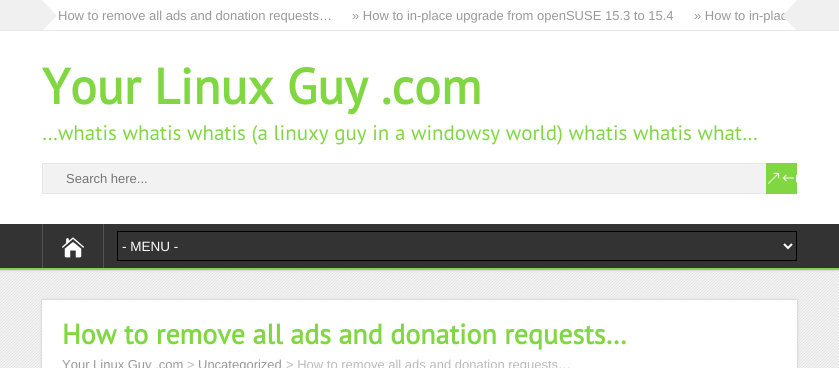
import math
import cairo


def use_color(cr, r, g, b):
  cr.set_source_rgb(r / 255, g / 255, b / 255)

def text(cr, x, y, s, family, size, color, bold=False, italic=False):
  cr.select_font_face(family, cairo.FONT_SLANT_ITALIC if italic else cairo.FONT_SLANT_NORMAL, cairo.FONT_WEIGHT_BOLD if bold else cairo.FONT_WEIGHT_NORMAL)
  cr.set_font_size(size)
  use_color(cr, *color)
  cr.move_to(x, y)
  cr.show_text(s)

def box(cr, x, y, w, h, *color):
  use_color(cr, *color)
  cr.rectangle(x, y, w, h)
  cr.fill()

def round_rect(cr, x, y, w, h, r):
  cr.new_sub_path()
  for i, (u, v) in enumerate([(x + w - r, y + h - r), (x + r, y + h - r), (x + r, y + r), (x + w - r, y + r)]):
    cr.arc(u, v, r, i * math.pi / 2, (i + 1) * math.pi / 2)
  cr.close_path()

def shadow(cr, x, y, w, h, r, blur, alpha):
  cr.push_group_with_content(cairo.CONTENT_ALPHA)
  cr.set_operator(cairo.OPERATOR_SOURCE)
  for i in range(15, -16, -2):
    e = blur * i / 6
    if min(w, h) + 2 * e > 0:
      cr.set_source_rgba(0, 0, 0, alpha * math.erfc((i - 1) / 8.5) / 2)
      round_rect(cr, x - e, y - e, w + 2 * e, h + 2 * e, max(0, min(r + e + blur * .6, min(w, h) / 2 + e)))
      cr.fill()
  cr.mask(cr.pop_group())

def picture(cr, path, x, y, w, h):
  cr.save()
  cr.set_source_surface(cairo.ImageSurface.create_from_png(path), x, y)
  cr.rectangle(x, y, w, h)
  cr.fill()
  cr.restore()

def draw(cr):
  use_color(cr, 241, 241, 241)
  cr.paint()
  picture(cr, "img_03.png", 0, 270, 839, 98)
  use_color(cr, 187, 187, 187)
  shadow(cr, 0, 0, 839, 270, 0, 1, 1)
  box(cr, 0, 31, 839, 193, 255, 255, 255)
  box(cr, 0, 0, 839, 30, 240, 240, 240)
  box(cr, 0, 30, 839, 1, 232, 232, 232)
  box(cr, 42, 0, 755, 30, 255, 255, 255)
  cr.save()
  cr.rectangle(42, 0, 755, 30)
  cr.clip()
  use_color(cr, 240, 240, 240)
  cr.new_path()
  cr.move_to(41, -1)
  cr.line_to(57, 16)
  cr.line_to(20, 53)
  cr.line_to(4, 36)
  cr.close_path()
  cr.fill()
  cr.restore()
  box(cr, 43, 164, 723, 29, 242, 242, 242)
  cr.rectangle(42.5, 163.5, 748, 30)
  use_color(cr, 230, 230, 230)
  cr.set_line_width(1)
  cr.stroke()
  box(cr, 766, 163, 31, 31, 129, 215, 66)
  picture(cr, "img_01.png", 767, 172, 30, 12)
  box(cr, 0, 224, 839, 44, 51, 51, 51)
  box(cr, 0, 268, 839, 2, 129, 215, 66)
  box(cr, 103, 224, 1, 44, 83, 83, 83)
  box(cr, 42, 224, 1, 44, 83, 83, 83)
  picture(cr, "img_02.png", 62, 237, 22, 21)
  cr.rectangle(117.5, 231.5, 679, 29)
  use_color(cr, 0, 0, 0)
  cr.stroke()
  cr.new_path()
  cr.move_to(784, 244)
  cr.line_to(788, 248)
  cr.line_to(792, 244)
  use_color(cr, 255, 255, 255)
  cr.set_line_width(2)
  cr.stroke()
  use_color(cr, 187, 187, 187)
  shadow(cr, 42, 300, 755, 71, 0, 1, 1)
  box(cr, 42, 300, 755, 68, 255, 255, 255)
  text(cr, 58, 20, "How to remove all ads and donation requests…", "Liberation Sans", 13, (153, 153, 153))
  text(cr, 352, 20, "» How to in-place upgrade from openSUSE 15.3 to 15.4", "Liberation Sans", 13, (153, 153, 153))
  text(cr, 694, 20, "» How to in-plac", "Liberation Sans", 13, (153, 153, 153))
  cr.save()
  cr.rectangle(42, 0, 755, 30)
  cr.clip()
  use_color(cr, 240, 240, 240)
  cr.new_path()
  cr.move_to(835, 36)
  cr.line_to(819, 53)
  cr.line_to(782, 16)
  cr.line_to(798, -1)
  cr.close_path()
  cr.fill()
  cr.restore()
  text(cr, 42, 104, "Your Linux Guy .com", "PT Sans", 50, (129, 215, 66), bold=True)
  text(cr, 42, 140, "…whatis whatis whatis (a linuxy guy in a windowsy world) whatis whatis what…", "PT Sans", 21, (129, 215, 66))
  text(cr, 66, 183, "Search here...", "Liberation Sans", 13, (117, 117, 117))
  text(cr, 122, 251, "- MENU -", "Liberation Sans", 13.5, (255, 255, 255))
  text(cr, 62, 344, "How to remove all ads and donation requests…", "PT Sans", 28, (129, 215, 66), bold=True)
  text(cr, 62, 369, "Your Linux Guy .com", "Liberation Sans", 13, (153, 153, 153))
  text(cr, 187, 369, ">", "Liberation Sans", 13, (187, 187, 187))
  text(cr, 198, 369, "Uncategorized", "Liberation Sans", 13, (153, 153, 153))
  text(cr, 286, 369, "> How to remove all ads and donation requests…", "Liberation Sans", 13, (187, 187, 187))


surface = cairo.ImageSurface(cairo.FORMAT_RGB24, 839, 368)
cr = cairo.Context(surface)
options = cairo.FontOptions()
options.set_hint_metrics(cairo.HINT_METRICS_OFF)
options.set_hint_style(cairo.HINT_STYLE_NONE)
cr.set_font_options(options)
cr.set_miter_limit(4)
draw(cr)
surface.write_to_png("out.png")
